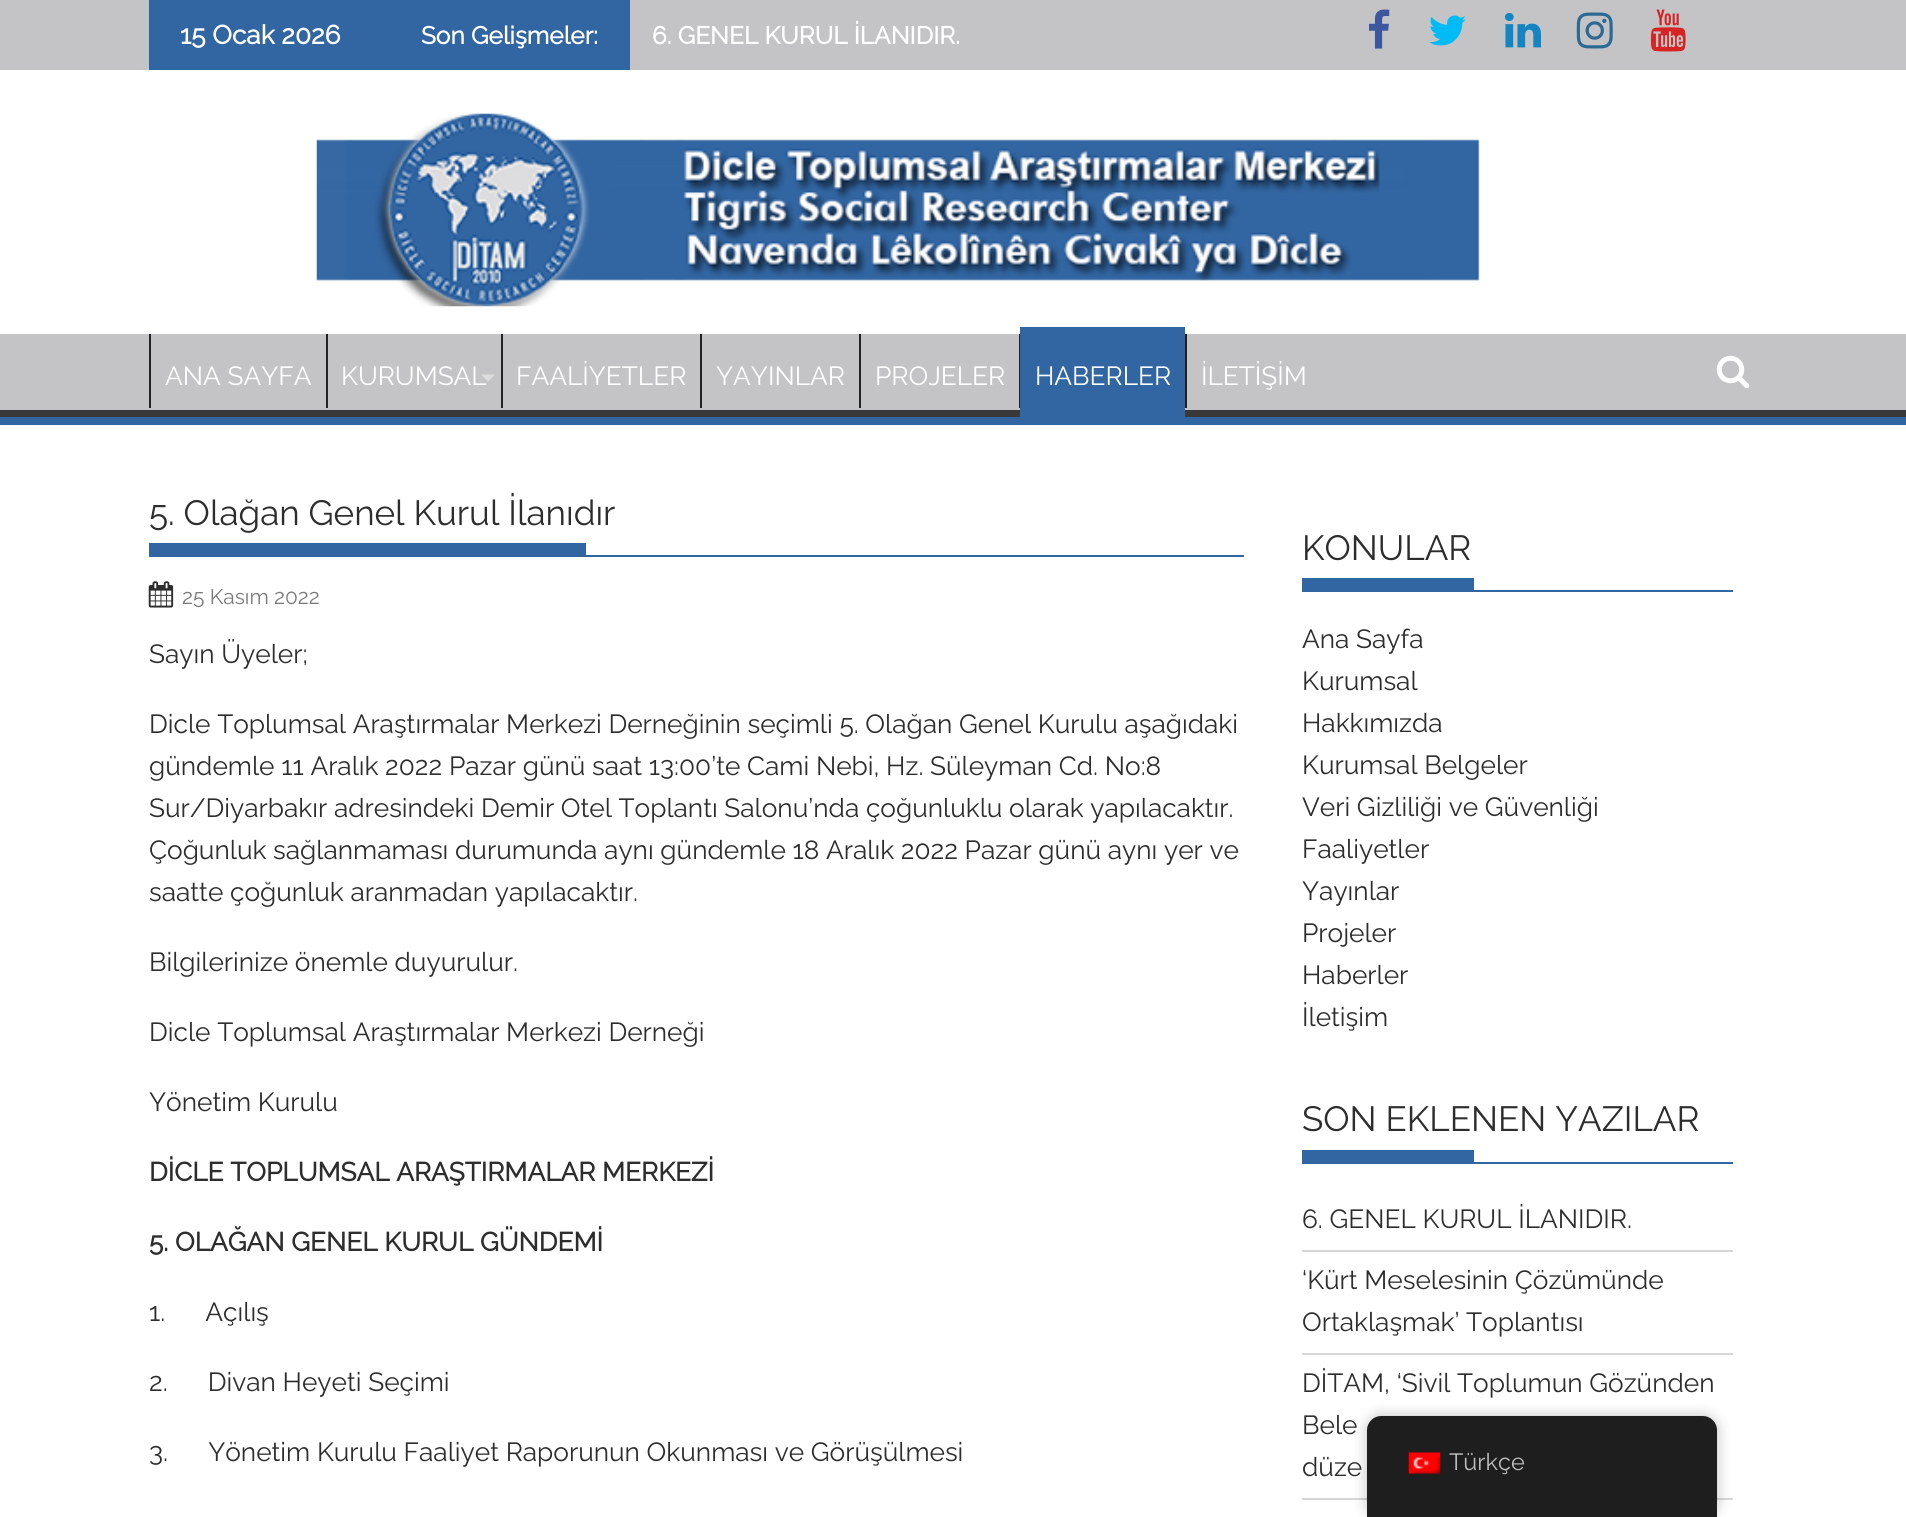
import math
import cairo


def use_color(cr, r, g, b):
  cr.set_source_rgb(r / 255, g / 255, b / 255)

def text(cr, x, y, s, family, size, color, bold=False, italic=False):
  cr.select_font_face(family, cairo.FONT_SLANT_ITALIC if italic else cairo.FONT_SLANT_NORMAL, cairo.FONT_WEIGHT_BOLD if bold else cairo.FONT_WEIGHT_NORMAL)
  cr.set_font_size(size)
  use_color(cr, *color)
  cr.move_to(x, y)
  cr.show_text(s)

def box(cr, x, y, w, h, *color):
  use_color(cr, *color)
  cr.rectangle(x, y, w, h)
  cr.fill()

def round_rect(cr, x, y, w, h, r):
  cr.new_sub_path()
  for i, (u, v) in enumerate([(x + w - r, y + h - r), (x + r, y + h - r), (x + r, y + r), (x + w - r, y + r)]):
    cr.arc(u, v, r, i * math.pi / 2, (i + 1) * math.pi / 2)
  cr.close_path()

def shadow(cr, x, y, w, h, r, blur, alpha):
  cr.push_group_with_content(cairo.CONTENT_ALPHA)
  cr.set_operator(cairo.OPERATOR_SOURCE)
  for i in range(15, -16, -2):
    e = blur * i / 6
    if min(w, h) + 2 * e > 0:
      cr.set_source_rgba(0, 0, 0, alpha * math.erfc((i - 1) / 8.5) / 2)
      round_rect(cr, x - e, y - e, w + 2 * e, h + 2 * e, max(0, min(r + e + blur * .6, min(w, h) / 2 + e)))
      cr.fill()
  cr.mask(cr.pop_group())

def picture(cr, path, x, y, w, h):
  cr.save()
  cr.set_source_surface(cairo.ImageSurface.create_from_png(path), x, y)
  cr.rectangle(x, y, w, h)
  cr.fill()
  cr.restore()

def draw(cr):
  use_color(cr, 255, 255, 255)
  cr.paint()
  box(cr, 0, 0, 1906, 70, 196, 196, 198)
  box(cr, 149, 0, 481, 70, 50, 102, 162)
  picture(cr, "img_01.png", 1369, 9, 21, 40)
  picture(cr, "img_02.png", 1429, 15, 37, 31)
  picture(cr, "img_03.png", 1505, 13, 36, 35)
  picture(cr, "img_04.png", 1576, 12, 37, 37)
  picture(cr, "img_05.png", 1650, 9, 36, 43)
  picture(cr, "img_06.png", 316, 113, 1164, 194)
  box(cr, 0, 334, 1906, 76, 196, 196, 198)
  cr.save()
  cr.rectangle(0, 334, 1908, 83)
  cr.clip()
  use_color(cr, 57, 57, 57)
  cr.set_fill_rule(cairo.FILL_RULE_EVEN_ODD)
  cr.new_path()
  cr.move_to(-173, 161)
  cr.line_to(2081, 161)
  cr.line_to(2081, 590)
  cr.line_to(-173, 590)
  cr.close_path()
  cr.move_to(-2, 324)
  cr.line_to(1906, 324)
  cr.curve_to(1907, 324, 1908, 325, 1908, 326)
  cr.line_to(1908, 408)
  cr.curve_to(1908, 409, 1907, 410, 1906, 410)
  cr.line_to(-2, 410)
  cr.curve_to(-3, 410, -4, 409, -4, 408)
  cr.line_to(-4, 326)
  cr.curve_to(-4, 325, -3, 324, -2, 324)
  cr.close_path()
  cr.fill()
  cr.restore()
  box(cr, 0, 417, 1906, 8, 50, 102, 162)
  box(cr, 149, 334, 2, 74, 34, 34, 34)
  box(cr, 326, 334, 2, 74, 34, 34, 34)
  box(cr, 501, 334, 2, 74, 34, 34, 34)
  box(cr, 700, 334, 2, 74, 34, 34, 34)
  box(cr, 859, 334, 2, 74, 34, 34, 34)
  box(cr, 1019, 334, 1, 74, 34, 34, 34)
  box(cr, 1020, 327, 165, 90, 50, 102, 162)
  box(cr, 1185, 334, 2, 74, 34, 34, 34)
  picture(cr, "img_07.png", 1716, 355, 34, 34)
  box(cr, 149, 555, 1095, 2, 50, 102, 162)
  box(cr, 149, 543, 437, 12, 50, 102, 162)
  picture(cr, "img_08.png", 148, 581, 26, 27)
  box(cr, 1302, 590, 431, 2, 50, 102, 162)
  box(cr, 1302, 578, 172, 12, 50, 102, 162)
  box(cr, 1302, 1162, 431, 2, 50, 102, 162)
  box(cr, 1302, 1150, 172, 12, 50, 102, 162)
  box(cr, 1302, 1250, 431, 2, 215, 215, 215)
  box(cr, 1302, 1353, 431, 2, 215, 215, 215)
  box(cr, 1302, 1498, 431, 2, 215, 215, 215)
  use_color(cr, 0, 0, 0)
  shadow(cr, 1367, 1416, 350, 101, 14, 7, 0.25)
  use_color(cr, 30, 30, 30)
  cr.new_path()
  cr.move_to(1381, 1416)
  cr.line_to(1703, 1416)
  cr.curve_to(1710.5, 1416, 1717, 1422.5, 1717, 1430)
  cr.line_to(1717, 1517)
  cr.line_to(1367, 1517)
  cr.line_to(1367, 1430)
  cr.curve_to(1367, 1422.5, 1373.5, 1416, 1381, 1416)
  cr.close_path()
  cr.fill()
  picture(cr, "img_09.png", 1408, 1452, 33, 22)
  text(cr, 180, 44, "15 Ocak 2026", "Raleway", 26.25, (255, 255, 255), bold=True)
  text(cr, 421, 44, "Son Gelişmeler:", "Raleway", 24.5, (255, 255, 255), bold=True)
  text(cr, 652, 44, "6. GENEL KURUL İLANIDIR.", "Raleway", 24.5, (255, 255, 255), bold=True)
  text(cr, 165, 385, "ANA SAYFA", "Raleway Thin", 26.25, (255, 255, 255))
  text(cr, 341, 385, "KURUMSAL", "Raleway Thin", 26.25, (255, 255, 255))
  use_color(cr, 221, 221, 221)
  cr.new_path()
  cr.move_to(481, 374.5)
  cr.line_to(495, 374.5)
  cr.line_to(488, 381.5)
  cr.close_path()
  cr.fill()
  text(cr, 516, 385, "FAALİYETLER", "Raleway Thin", 26.25, (255, 255, 255))
  text(cr, 716, 385, "YAYINLAR", "Raleway Thin", 26.25, (255, 255, 255))
  text(cr, 875, 385, "PROJELER", "Raleway Thin", 26.25, (255, 255, 255))
  text(cr, 1035, 385, "HABERLER", "Raleway Thin", 26.25, (255, 255, 255))
  text(cr, 1201, 385, "İLETİŞİM", "Raleway Thin", 26.25, (255, 255, 255))
  text(cr, 149, 525, "5. Olağan Genel Kurul İlanıdır", "Raleway Thin", 35, (45, 45, 45))
  text(cr, 182, 604, "25 Kasım 2022", "Raleway Thin", 21, (122, 122, 122))
  text(cr, 149, 663, "Sayın Üyeler;", "Raleway Thin", 26.25, (45, 45, 45))
  text(cr, 149, 733, "Dicle Toplumsal Araştırmalar Merkezi Derneğinin seçimli 5. Olağan Genel Kurulu aşağıdaki", "Raleway Thin", 26.25, (45, 45, 45))
  text(cr, 149, 775, "gündemle 11 Aralık 2022 Pazar günü saat 13:00’te Cami Nebi, Hz. Süleyman Cd. No:8", "Raleway Thin", 26.25, (45, 45, 45))
  text(cr, 149, 817, "Sur/Diyarbakır adresindeki Demir Otel Toplantı Salonu’nda çoğunluklu olarak yapılacaktır.", "Raleway Thin", 26.25, (45, 45, 45))
  text(cr, 149, 859, "Çoğunluk sağlanmaması durumunda aynı gündemle 18 Aralık 2022 Pazar günü aynı yer ve", "Raleway Thin", 26.25, (45, 45, 45))
  text(cr, 149, 901, "saatte çoğunluk aranmadan yapılacaktır.", "Raleway Thin", 26.25, (45, 45, 45))
  text(cr, 149, 971, "Bilgilerinize önemle duyurulur.", "Raleway Thin", 26.25, (45, 45, 45))
  text(cr, 149, 1041, "Dicle Toplumsal Araştırmalar Merkezi Derneği", "Raleway Thin", 26.25, (45, 45, 45))
  text(cr, 149, 1111, "Yönetim Kurulu", "Raleway Thin", 26.25, (45, 45, 45))
  text(cr, 149, 1181, "DİCLE TOPLUMSAL ARAŞTIRMALAR MERKEZİ", "Raleway", 26.25, (45, 45, 45), bold=True)
  text(cr, 149, 1251, "5. OLAĞAN GENEL KURUL GÜNDEMİ", "Raleway", 26.25, (45, 45, 45), bold=True)
  text(cr, 149, 1321, "1.      Açılış", "Raleway Thin", 26.25, (45, 45, 45))
  text(cr, 149, 1391, "2.      Divan Heyeti Seçimi", "Raleway Thin", 26.25, (45, 45, 45))
  text(cr, 149, 1461, "3.      Yönetim Kurulu Faaliyet Raporunun Okunması ve Görüşülmesi", "Raleway Thin", 26.25, (45, 45, 45))
  text(cr, 1302, 560, "KONULAR", "Raleway Thin", 35, (45, 45, 45))
  text(cr, 1302, 648, "Ana Sayfa", "Raleway Thin", 26.25, (45, 45, 45))
  text(cr, 1302, 690, "Kurumsal", "Raleway Thin", 26.25, (45, 45, 45))
  text(cr, 1302, 732, "Hakkımızda", "Raleway Thin", 26.25, (45, 45, 45))
  text(cr, 1302, 774, "Kurumsal Belgeler", "Raleway Thin", 26.25, (45, 45, 45))
  text(cr, 1302, 816, "Veri Gizliliği ve Güvenliği", "Raleway Thin", 26.25, (45, 45, 45))
  text(cr, 1302, 858, "Faaliyetler", "Raleway Thin", 26.25, (45, 45, 45))
  text(cr, 1302, 900, "Yayınlar", "Raleway Thin", 26.25, (45, 45, 45))
  text(cr, 1302, 942, "Projeler", "Raleway Thin", 26.25, (45, 45, 45))
  text(cr, 1302, 984, "Haberler", "Raleway Thin", 26.25, (45, 45, 45))
  text(cr, 1302, 1026, "İletişim", "Raleway Thin", 26.25, (45, 45, 45))
  text(cr, 1302, 1131, "SON EKLENEN YAZILAR", "Raleway Thin", 35, (45, 45, 45))
  text(cr, 1302, 1228, "6. GENEL KURUL İLANIDIR.", "Raleway Thin", 26.25, (45, 45, 45))
  text(cr, 1302, 1289, "‘Kürt Meselesinin Çözümünde", "Raleway Thin", 26.25, (45, 45, 45))
  text(cr, 1302, 1331, "Ortaklaşmak’ Toplantısı", "Raleway Thin", 26.25, (45, 45, 45))
  text(cr, 1302, 1392, "DİTAM, ‘Sivil Toplumun Gözünden", "Raleway Thin", 26.25, (45, 45, 45))
  text(cr, 1302, 1434, "Bele", "Raleway Thin", 26.25, (45, 45, 45))
  text(cr, 1302, 1476, "düze", "Raleway Thin", 26.25, (45, 45, 45))
  text(cr, 1449, 1470, "Türkçe", "Raleway Thin", 23.5, (189, 189, 189))


surface = cairo.ImageSurface(cairo.FORMAT_RGB24, 1906, 1517)
cr = cairo.Context(surface)
options = cairo.FontOptions()
options.set_hint_metrics(cairo.HINT_METRICS_OFF)
options.set_hint_style(cairo.HINT_STYLE_NONE)
cr.set_font_options(options)
cr.set_miter_limit(4)
draw(cr)
surface.write_to_png("out.png")
